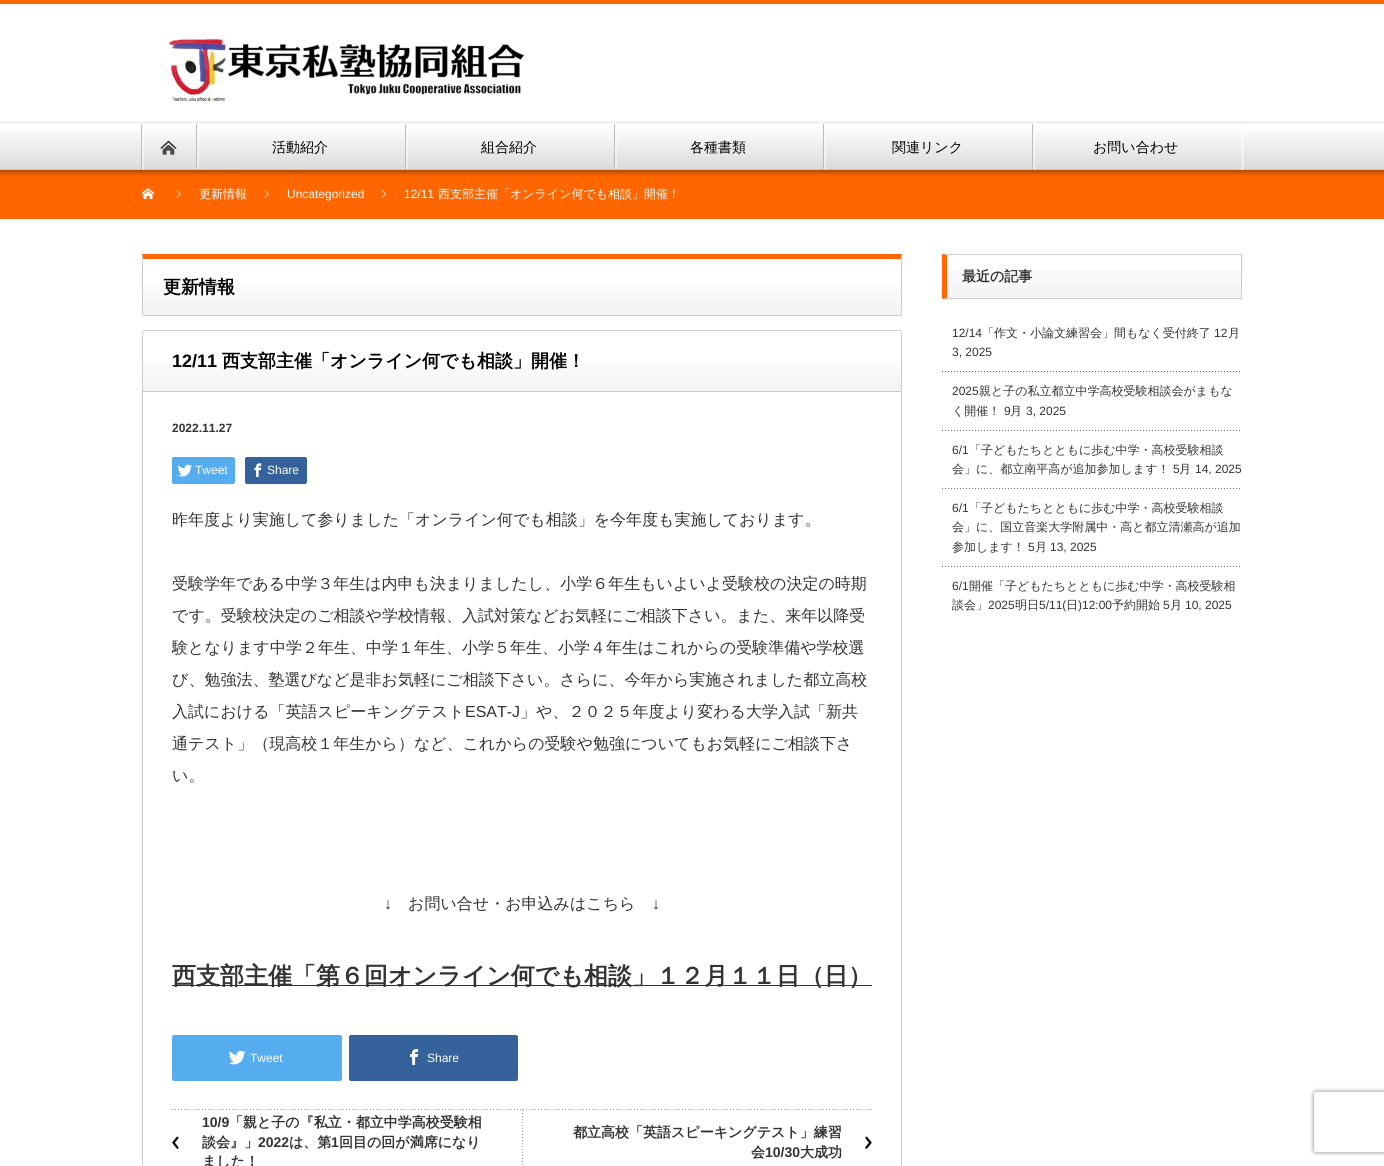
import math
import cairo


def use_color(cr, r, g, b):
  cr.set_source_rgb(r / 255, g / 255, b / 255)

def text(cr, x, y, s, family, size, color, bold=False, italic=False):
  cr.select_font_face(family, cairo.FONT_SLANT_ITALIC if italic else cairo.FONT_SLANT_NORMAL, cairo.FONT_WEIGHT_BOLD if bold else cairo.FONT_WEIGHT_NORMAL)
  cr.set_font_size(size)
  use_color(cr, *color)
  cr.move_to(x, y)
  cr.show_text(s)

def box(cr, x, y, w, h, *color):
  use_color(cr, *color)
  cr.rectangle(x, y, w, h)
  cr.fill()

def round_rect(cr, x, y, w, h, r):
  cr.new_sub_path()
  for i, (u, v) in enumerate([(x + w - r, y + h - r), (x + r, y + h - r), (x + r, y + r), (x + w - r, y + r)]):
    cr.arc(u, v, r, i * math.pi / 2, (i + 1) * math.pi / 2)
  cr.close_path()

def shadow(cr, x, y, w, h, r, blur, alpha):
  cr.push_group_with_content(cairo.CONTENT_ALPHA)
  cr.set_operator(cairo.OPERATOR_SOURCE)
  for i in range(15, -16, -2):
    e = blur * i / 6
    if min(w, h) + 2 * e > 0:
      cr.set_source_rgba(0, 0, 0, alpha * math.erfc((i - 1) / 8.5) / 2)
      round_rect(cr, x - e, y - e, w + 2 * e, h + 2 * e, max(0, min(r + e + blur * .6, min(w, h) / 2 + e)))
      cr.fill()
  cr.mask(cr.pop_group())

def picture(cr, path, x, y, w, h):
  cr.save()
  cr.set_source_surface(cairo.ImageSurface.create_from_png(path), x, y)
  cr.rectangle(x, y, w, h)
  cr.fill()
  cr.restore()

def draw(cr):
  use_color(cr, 255, 255, 255)
  cr.paint()
  picture(cr, "img_01.png", 0, 130, 1384, 40)
  box(cr, 0, 0, 1384, 4, 255, 102, 0)
  box(cr, 0, 121, 1384, 3, 242, 242, 242)
  picture(cr, "img_02.png", 169, 39, 355, 62)
  picture(cr, "img_03.png", 141, 124, 55, 46)
  picture(cr, "img_04.png", 142, 124, 54, 45)
  picture(cr, "img_05.png", 160, 140, 17, 15)
  cr.set_source_rgba(1, 1, 1, 0.44)
  cr.rectangle(1241, 124, 3, 46)
  cr.fill()
  picture(cr, "img_06.png", 196, 124, 209, 46)
  picture(cr, "img_07.png", 197, 124, 208, 45)
  picture(cr, "img_06.png", 405, 124, 209, 46)
  picture(cr, "img_07.png", 406, 124, 208, 45)
  picture(cr, "img_06.png", 614, 124, 209, 46)
  picture(cr, "img_07.png", 615, 124, 208, 45)
  picture(cr, "img_06.png", 823, 124, 209, 46)
  picture(cr, "img_07.png", 824, 124, 208, 45)
  picture(cr, "img_06.png", 1032, 124, 209, 46)
  picture(cr, "img_07.png", 1033, 124, 208, 45)
  box(cr, 0, 170, 1384, 49, 255, 102, 0)
  picture(cr, "img_08.png", 0, 170, 1384, 6)
  picture(cr, "img_09.png", 142, 188, 12, 11)
  picture(cr, "img_10.png", 176, 190, 5, 8)
  picture(cr, "img_10.png", 264, 190, 5, 8)
  picture(cr, "img_10.png", 381, 190, 5, 8)
  picture(cr, "img_11.png", 143, 287, 758, 28)
  cr.new_path()
  cr.move_to(142, 254)
  cr.line_to(902, 254)
  cr.line_to(901, 259)
  cr.line_to(143, 259)
  cr.close_path()
  cr.fill()
  use_color(cr, 204, 204, 204)
  cr.new_path()
  cr.move_to(902, 254)
  cr.line_to(902, 316)
  cr.line_to(901, 315)
  cr.line_to(901, 259)
  cr.close_path()
  cr.fill()
  box(cr, 142, 315, 760, 1, 204, 204, 204)
  cr.new_path()
  cr.move_to(142, 316)
  cr.line_to(142, 254)
  cr.line_to(143, 259)
  cr.line_to(143, 315)
  cr.close_path()
  cr.fill()
  round_rect(cr, 142.5, 330.5, 759, 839, 2.5)
  cr.set_line_width(1)
  cr.stroke()
  picture(cr, "img_11.png", 143, 363, 758, 28)
  box(cr, 143, 391, 758, 1, 204, 204, 204)
  picture(cr, "img_12.png", 172, 1109, 700, 1)
  use_color(cr, 247, 247, 247)
  cr.new_path()
  cr.move_to(172, 482)
  cr.curve_to(172, 488, 180, 485, 184, 485)
  cr.line_to(223, 485)
  cr.curve_to(227, 485, 235, 488, 235, 482)
  cr.line_to(234, 484)
  cr.line_to(184, 484)
  cr.curve_to(180, 484, 172, 486, 172, 482)
  cr.close_path()
  cr.fill()
  use_color(cr, 85, 172, 238)
  round_rect(cr, 172, 457, 63, 27, 2)
  cr.fill()
  picture(cr, "img_13.png", 177, 464, 15, 13)
  use_color(cr, 247, 247, 247)
  cr.new_path()
  cr.move_to(245, 482)
  cr.curve_to(245, 488, 253, 485, 257, 485)
  cr.line_to(295, 485)
  cr.curve_to(299, 485, 307, 488, 307, 482)
  cr.line_to(306, 484)
  cr.line_to(257, 484)
  cr.curve_to(253, 484, 245, 486, 245, 482)
  cr.close_path()
  cr.fill()
  use_color(cr, 53, 98, 154)
  round_rect(cr, 245, 457, 62, 27, 2)
  cr.fill()
  picture(cr, "img_14.png", 254, 463, 8, 14)
  box(cr, 172, 985, 700, 1, 51, 51, 51)
  use_color(cr, 85, 172, 238)
  round_rect(cr, 172, 1035, 170, 46, 2)
  cr.fill()
  picture(cr, "img_15.png", 229, 1050, 17, 15)
  use_color(cr, 53, 98, 154)
  round_rect(cr, 349, 1035, 169, 46, 2)
  cr.fill()
  picture(cr, "img_16.png", 410, 1049, 9, 16)
  picture(cr, "img_17.png", 522, 1110, 1, 55)
  picture(cr, "img_18.png", 172, 1136, 7, 13)
  picture(cr, "img_19.png", 865, 1136, 7, 13)
  picture(cr, "img_20.png", 947, 270, 294, 28)
  use_color(cr, 204, 204, 204)
  cr.new_path()
  cr.move_to(942, 254)
  cr.line_to(1242, 254)
  cr.line_to(1241, 255)
  cr.line_to(947, 255)
  cr.close_path()
  cr.fill()
  box(cr, 1241, 254, 1, 45, 204, 204, 204)
  cr.new_path()
  cr.move_to(1242, 299)
  cr.line_to(942, 299)
  cr.line_to(947, 298)
  cr.line_to(1241, 298)
  cr.close_path()
  cr.fill()
  use_color(cr, 255, 102, 0)
  cr.new_path()
  cr.move_to(942, 299)
  cr.line_to(942, 254)
  cr.line_to(947, 255)
  cr.line_to(947, 298)
  cr.close_path()
  cr.fill()
  picture(cr, "img_21.png", 942, 371, 298, 1)
  picture(cr, "img_21.png", 942, 430, 298, 1)
  picture(cr, "img_21.png", 942, 488, 298, 1)
  picture(cr, "img_21.png", 942, 566, 298, 1)
  cr.save()
  cr.set_fill_rule(cairo.FILL_RULE_EVEN_ODD)
  cr.new_path()
  cr.move_to(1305, 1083)
  cr.line_to(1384, 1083)
  cr.line_to(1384, 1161)
  cr.line_to(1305, 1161)
  cr.close_path()
  cr.move_to(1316, 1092)
  cr.line_to(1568, 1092)
  cr.curve_to(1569, 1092, 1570, 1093, 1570, 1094)
  cr.line_to(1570, 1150)
  cr.curve_to(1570, 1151, 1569, 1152, 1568, 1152)
  cr.line_to(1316, 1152)
  cr.curve_to(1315, 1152, 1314, 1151, 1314, 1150)
  cr.line_to(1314, 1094)
  cr.curve_to(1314, 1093, 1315, 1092, 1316, 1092)
  cr.close_path()
  cr.clip()
  use_color(cr, 128, 128, 128)
  shadow(cr, 1314, 1092, 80, 60, 2, 2.5, 1)
  cr.restore()
  text(cr, 272, 152, "活動紹介", "WenQuanYi Zen Hei Medium", 14, (0, 0, 0))
  text(cr, 481, 152, "組合紹介", "WenQuanYi Zen Hei Medium", 14, (0, 0, 0))
  text(cr, 690, 152, "各種書類", "WenQuanYi Zen Hei Medium", 14, (0, 0, 0))
  text(cr, 892, 152, "関連リンク", "WenQuanYi Zen Hei Medium", 14, (0, 0, 0))
  text(cr, 1093, 152, "お問い合わせ", "WenQuanYi Zen Hei Medium", 14, (0, 0, 0))
  text(cr, 199, 198, "更新情報", "WenQuanYi Zen Hei Medium", 12, (255, 255, 255))
  text(cr, 287, 198, "Uncategorized", "Liberation Sans", 12, (255, 255, 255))
  text(cr, 404, 198, "12/11", "Liberation Sans", 12, (255, 255, 255))
  text(cr, 438, 198, "西支部主催「オンライン何でも相談」開催！", "WenQuanYi Zen Hei Medium", 12, (255, 255, 255))
  text(cr, 163, 293, "更新情報", "WenQuanYi Zen Hei", 18, (0, 0, 0), bold=True)
  text(cr, 172, 367, "12/11", "Liberation Sans", 18, (0, 0, 0), bold=True)
  text(cr, 222, 367, "西支部主催「オンライン何でも相談」開催！", "WenQuanYi Zen Hei", 18, (0, 0, 0), bold=True)
  text(cr, 172, 432, "2022.11.27", "Liberation Sans", 12, (51, 51, 51), bold=True)
  text(cr, 195, 474, "Tweet", "Liberation Sans", 12, (255, 255, 255))
  text(cr, 267, 474, "Share", "Liberation Sans", 12, (255, 255, 255))
  text(cr, 172, 525, "昨年度より実施して参りました「オンライン何でも相談」を今年度も実施しております。", "WenQuanYi Zen Hei Medium", 16, (51, 51, 51))
  text(cr, 172, 589, "受験学年である中学３年生は内申も決まりましたし、小学６年生もいよいよ受験校の決定の時期", "WenQuanYi Zen Hei Medium", 16, (51, 51, 51))
  text(cr, 172, 621, "です。受験校決定のご相談や学校情報、入試対策などお気軽にご相談下さい。また、来年以降受", "WenQuanYi Zen Hei Medium", 16, (51, 51, 51))
  text(cr, 172, 653, "験となります中学２年生、中学１年生、小学５年生、小学４年生はこれからの受験準備や学校選", "WenQuanYi Zen Hei Medium", 16, (51, 51, 51))
  text(cr, 172, 685, "び、勉強法、塾選びなど是非お気軽にご相談下さい。さらに、今年から実施されました都立高校", "WenQuanYi Zen Hei Medium", 16, (51, 51, 51))
  text(cr, 172, 717, "入試における「英語スピーキングテスト", "WenQuanYi Zen Hei Medium", 16, (51, 51, 51))
  text(cr, 465, 717, "ESAT-J", "Liberation Sans", 16, (51, 51, 51))
  text(cr, 520, 717, "」や、２０２５年度より変わる大学入試「新共", "WenQuanYi Zen Hei Medium", 16, (51, 51, 51))
  text(cr, 172, 749, "通テスト」（現高校１年生から）など、これからの受験や勉強についてもお気軽にご相談下さ", "WenQuanYi Zen Hei Medium", 16, (51, 51, 51))
  text(cr, 172, 781, "い。", "WenQuanYi Zen Hei Medium", 16, (51, 51, 51))
  text(cr, 384, 909, "↓", "Liberation Sans", 16, (51, 51, 51))
  text(cr, 408, 909, "お問い合せ・お申込みはこちら", "WenQuanYi Zen Hei Medium", 16, (51, 51, 51))
  text(cr, 652, 909, "↓", "Liberation Sans", 16, (51, 51, 51))
  text(cr, 172, 984, "西支部主催「第６回オンライン何でも相談」１２月１１日（日）", "WenQuanYi Zen Hei", 24, (51, 51, 51), bold=True)
  text(cr, 250, 1062, "Tweet", "Liberation Sans", 12, (255, 255, 255))
  text(cr, 427, 1062, "Share", "Liberation Sans", 12, (255, 255, 255))
  text(cr, 202, 1127, "10/9", "Liberation Sans", 14, (51, 51, 51), bold=True)
  text(cr, 229, 1127, "「親と子の『私立・都立中学高校受験相", "WenQuanYi Zen Hei", 14, (51, 51, 51), bold=True)
  text(cr, 202, 1147, "談会』」", "WenQuanYi Zen Hei", 14, (51, 51, 51), bold=True)
  text(cr, 258, 1147, "2022", "Liberation Sans", 14, (51, 51, 51), bold=True)
  text(cr, 289, 1147, "は、第", "WenQuanYi Zen Hei", 14, (51, 51, 51), bold=True)
  text(cr, 331, 1147, "1", "Liberation Sans", 14, (51, 51, 51), bold=True)
  text(cr, 339, 1147, "回目の回が満席になり", "WenQuanYi Zen Hei", 14, (51, 51, 51), bold=True)
  text(cr, 202, 1166, "ました！", "WenQuanYi Zen Hei", 14, (51, 51, 51), bold=True)
  text(cr, 573, 1137, "都立高校「英語スピーキングテスト」練習", "WenQuanYi Zen Hei", 14, (51, 51, 51), bold=True)
  text(cr, 751, 1157, "会", "WenQuanYi Zen Hei", 14, (51, 51, 51), bold=True)
  text(cr, 765, 1157, "10/30", "Liberation Sans", 14, (51, 51, 51), bold=True)
  text(cr, 800, 1157, "大成功", "WenQuanYi Zen Hei", 14, (51, 51, 51), bold=True)
  text(cr, 962, 281, "最近の記事", "WenQuanYi Zen Hei", 14, (51, 51, 51), bold=True)
  text(cr, 952, 337, "12/14", "Liberation Sans", 12, (51, 51, 51))
  text(cr, 982, 337, "「作文・小論文練習会」間もなく受付終了", "WenQuanYi Zen Hei Medium", 12, (51, 51, 51))
  text(cr, 1214, 337, "12", "Liberation Sans", 12, (51, 51, 51))
  text(cr, 1228, 337, "月", "WenQuanYi Zen Hei Medium", 12, (51, 51, 51))
  text(cr, 952, 356, "3, 2025", "Liberation Sans", 12, (51, 51, 51))
  text(cr, 952, 395, "2025", "Liberation Sans", 12, (51, 51, 51))
  text(cr, 979, 395, "親と子の私立都立中学高校受験相談会がまもな", "WenQuanYi Zen Hei Medium", 12, (51, 51, 51))
  text(cr, 952, 415, "く開催！", "WenQuanYi Zen Hei Medium", 12, (51, 51, 51))
  text(cr, 1004, 415, "9", "Liberation Sans", 12, (51, 51, 51))
  text(cr, 1010, 415, "月", "WenQuanYi Zen Hei Medium", 12, (51, 51, 51))
  text(cr, 1026, 415, "3, 2025", "Liberation Sans", 12, (51, 51, 51))
  text(cr, 952, 454, "6/1", "Liberation Sans", 12, (51, 51, 51))
  text(cr, 969, 454, "「子どもたちとともに歩む中学・高校受験相談", "WenQuanYi Zen Hei Medium", 12, (51, 51, 51))
  text(cr, 952, 473, "会」に、都立南平高が追加参加します！", "WenQuanYi Zen Hei Medium", 12, (51, 51, 51))
  text(cr, 1173, 473, "5", "Liberation Sans", 12, (51, 51, 51))
  text(cr, 1179, 473, "月", "WenQuanYi Zen Hei Medium", 12, (51, 51, 51))
  text(cr, 1195, 473, "14, 2025", "Liberation Sans", 12, (51, 51, 51))
  text(cr, 952, 512, "6/1", "Liberation Sans", 12, (51, 51, 51))
  text(cr, 969, 512, "「子どもたちとともに歩む中学・高校受験相談", "WenQuanYi Zen Hei Medium", 12, (51, 51, 51))
  text(cr, 952, 531, "会」に、国立音楽大学附属中・高と都立清瀬高が追加", "WenQuanYi Zen Hei Medium", 12, (51, 51, 51))
  text(cr, 952, 551, "参加します！", "WenQuanYi Zen Hei Medium", 12, (51, 51, 51))
  text(cr, 1028, 551, "5", "Liberation Sans", 12, (51, 51, 51))
  text(cr, 1035, 551, "月", "WenQuanYi Zen Hei Medium", 12, (51, 51, 51))
  text(cr, 1050, 551, "13, 2025", "Liberation Sans", 12, (51, 51, 51))
  text(cr, 952, 590, "6/1", "Liberation Sans", 12, (51, 51, 51))
  text(cr, 969, 590, "開催「子どもたちとともに歩む中学・高校受験相", "WenQuanYi Zen Hei Medium", 12, (51, 51, 51))
  text(cr, 952, 609, "談会」", "WenQuanYi Zen Hei Medium", 12, (51, 51, 51))
  text(cr, 988, 609, "2025", "Liberation Sans", 12, (51, 51, 51))
  text(cr, 1015, 609, "明日", "WenQuanYi Zen Hei Medium", 12, (51, 51, 51))
  text(cr, 1039, 609, "5/11(", "Liberation Sans", 12, (51, 51, 51))
  text(cr, 1066, 609, "日", "WenQuanYi Zen Hei Medium", 12, (51, 51, 51))
  text(cr, 1078, 609, ")12:00", "Liberation Sans", 12, (51, 51, 51))
  text(cr, 1112, 609, "予約開始", "WenQuanYi Zen Hei Medium", 12, (51, 51, 51))
  text(cr, 1163, 609, "5", "Liberation Sans", 12, (51, 51, 51))
  text(cr, 1170, 609, "月", "WenQuanYi Zen Hei Medium", 12, (51, 51, 51))
  text(cr, 1185, 609, "10, 2025", "Liberation Sans", 12, (51, 51, 51))


surface = cairo.ImageSurface(cairo.FORMAT_RGB24, 1384, 1166)
cr = cairo.Context(surface)
options = cairo.FontOptions()
options.set_hint_metrics(cairo.HINT_METRICS_OFF)
options.set_hint_style(cairo.HINT_STYLE_NONE)
cr.set_font_options(options)
cr.set_miter_limit(4)
draw(cr)
surface.write_to_png("out.png")
